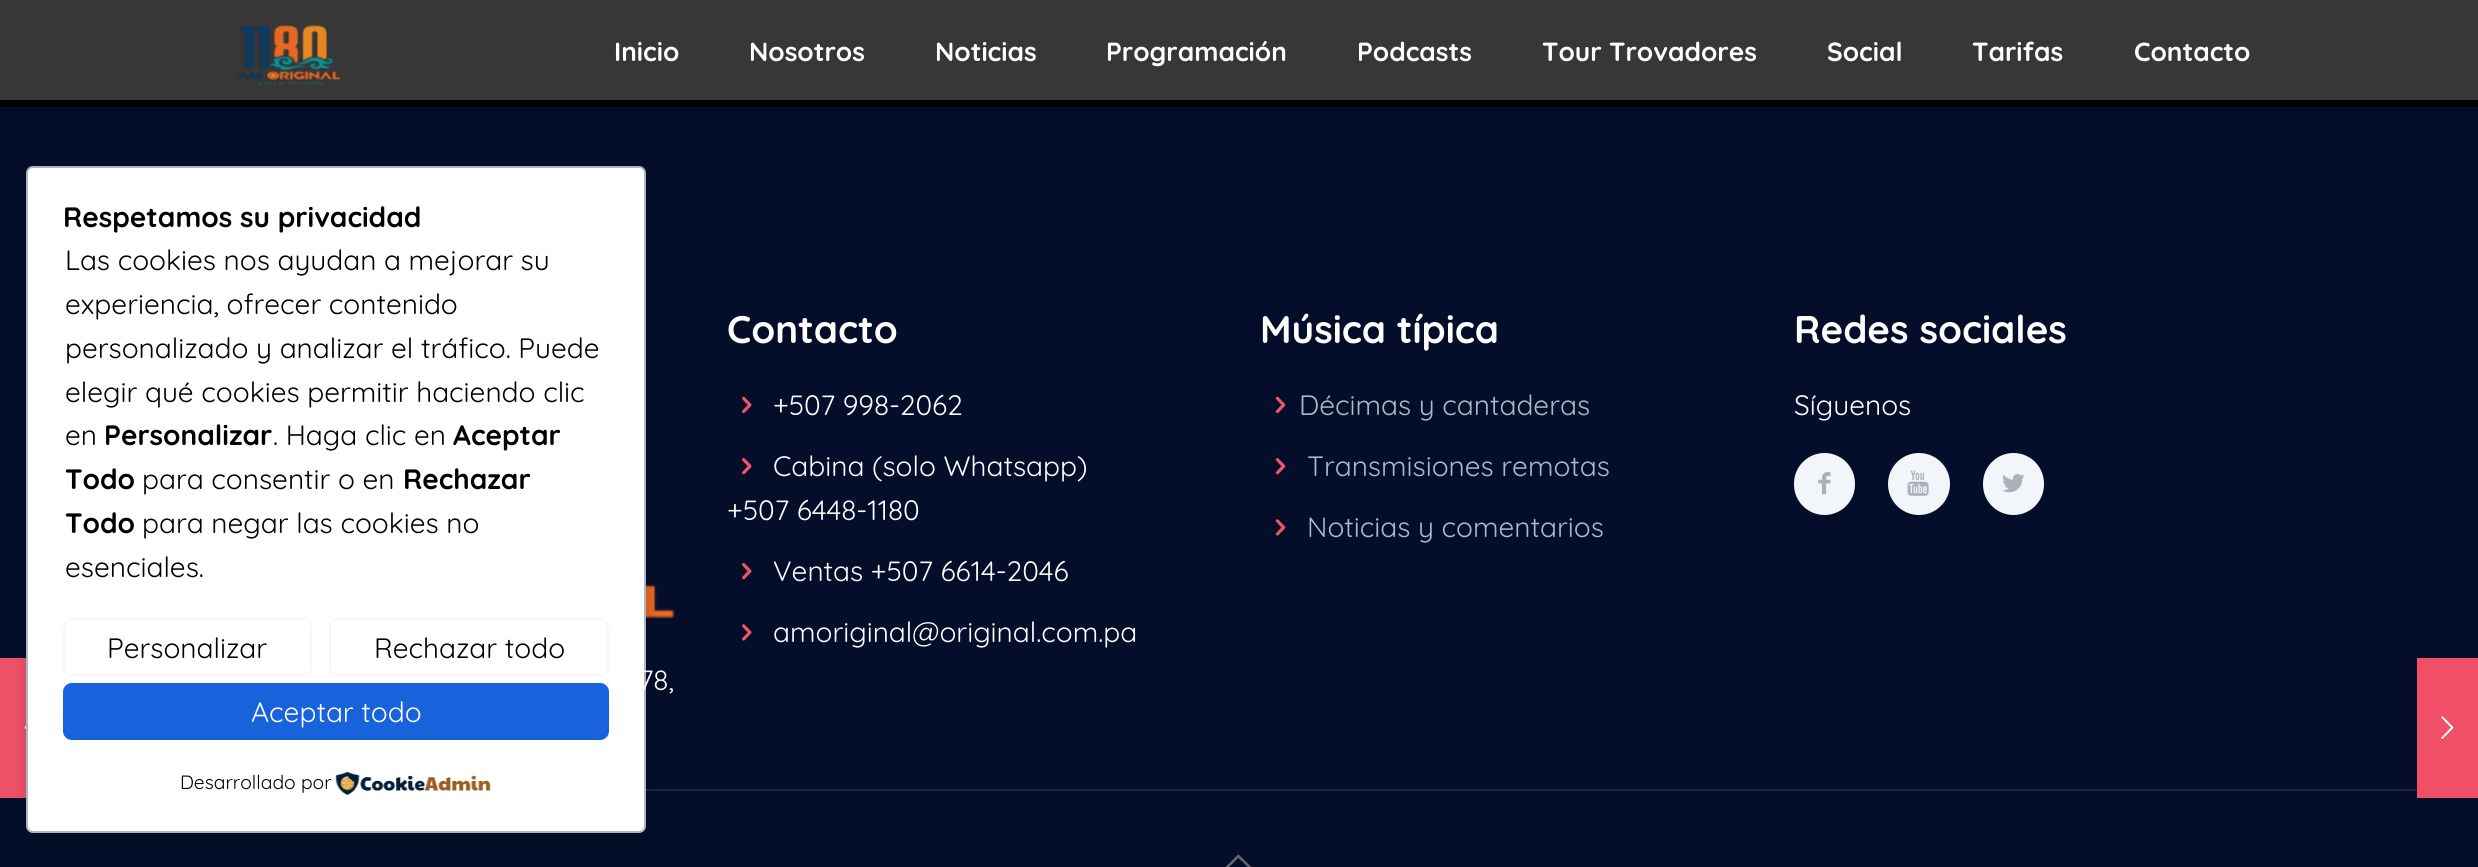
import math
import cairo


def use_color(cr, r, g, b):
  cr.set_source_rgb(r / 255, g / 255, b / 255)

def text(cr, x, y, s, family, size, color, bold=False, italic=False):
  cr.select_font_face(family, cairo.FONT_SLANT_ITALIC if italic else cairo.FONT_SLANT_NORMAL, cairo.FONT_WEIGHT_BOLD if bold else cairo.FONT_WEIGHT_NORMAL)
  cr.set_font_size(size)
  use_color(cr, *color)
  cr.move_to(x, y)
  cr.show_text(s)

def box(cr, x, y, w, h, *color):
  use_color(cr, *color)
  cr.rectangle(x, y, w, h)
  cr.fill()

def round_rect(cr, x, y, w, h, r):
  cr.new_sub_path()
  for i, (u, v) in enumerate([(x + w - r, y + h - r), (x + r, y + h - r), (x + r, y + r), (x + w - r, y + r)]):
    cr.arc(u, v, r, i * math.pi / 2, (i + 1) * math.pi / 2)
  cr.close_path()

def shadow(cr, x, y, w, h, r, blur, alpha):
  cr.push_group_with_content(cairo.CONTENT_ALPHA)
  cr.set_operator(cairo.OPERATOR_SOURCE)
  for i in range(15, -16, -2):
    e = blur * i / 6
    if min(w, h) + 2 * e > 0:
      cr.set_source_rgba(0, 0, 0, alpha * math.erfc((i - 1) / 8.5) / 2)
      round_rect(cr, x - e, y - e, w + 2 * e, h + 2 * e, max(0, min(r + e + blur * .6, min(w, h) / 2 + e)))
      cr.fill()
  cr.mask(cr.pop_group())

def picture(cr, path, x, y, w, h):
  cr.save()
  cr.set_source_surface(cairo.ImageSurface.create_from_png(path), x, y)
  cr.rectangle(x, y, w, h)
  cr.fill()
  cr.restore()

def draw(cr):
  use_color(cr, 252, 252, 252)
  cr.paint()
  box(cr, 0, 100, 2478, 767, 4, 14, 42)
  box(cr, 0, 658, 26, 140, 239, 80, 104)
  picture(cr, "img_01.png", 24, 725, 2, 5)
  picture(cr, "img_13.png", 646, 584, 29, 36)
  box(cr, 646, 789, 1771, 2, 29, 38, 63)
  use_color(cr, 0, 0, 0)
  shadow(cr, 28, 172, 620, 666, 7, 9, 0.2)
  use_color(cr, 255, 255, 255)
  round_rect(cr, 27, 167, 618, 665, 6)
  cr.fill_preserve()
  use_color(cr, 171, 184, 195)
  cr.stroke()
  round_rect(cr, 64, 619, 247, 56, 8)
  use_color(cr, 247, 247, 247)
  cr.stroke()
  round_rect(cr, 330, 619, 278, 56, 8)
  cr.stroke()
  use_color(cr, 24, 99, 220)
  round_rect(cr, 63, 683, 546, 57, 9)
  cr.fill()
  cr.rectangle(64, 684, 544, 55)
  cr.set_source_rgba(0, 0, 0, 0.03)
  cr.stroke()
  picture(cr, "img_02.png", 335, 771, 156, 24)
  cr.set_source_rgba(0, 0, 0, 0.78)
  cr.rectangle(0, 0, 2478, 107)
  cr.fill()
  picture(cr, "img_03.png", 237, 25, 104, 60)
  picture(cr, "img_04.png", 742, 396, 10, 18)
  picture(cr, "img_05.png", 742, 458, 10, 17)
  picture(cr, "img_05.png", 742, 563, 10, 17)
  picture(cr, "img_06.png", 742, 624, 10, 17)
  picture(cr, "img_07.png", 1275, 396, 11, 18)
  picture(cr, "img_08.png", 1275, 458, 11, 17)
  picture(cr, "img_09.png", 1275, 519, 11, 17)
  use_color(cr, 242, 245, 249)
  round_rect(cr, 1794, 453, 61, 62, 30.5)
  cr.fill()
  picture(cr, "img_10.png", 1818, 472, 13, 23)
  cr.arc(1919, 484, 31, 0, 2 * math.pi)
  cr.fill()
  picture(cr, "img_11.png", 1907, 470, 22, 26)
  round_rect(cr, 1983, 453, 61, 62, 30.5)
  cr.fill()
  picture(cr, "img_12.png", 2002, 474, 23, 19)
  picture(cr, "img_14.png", 1225, 854, 27, 13)
  box(cr, 2417, 658, 61, 140, 239, 80, 104)
  picture(cr, "img_15.png", 2441, 716, 13, 23)
  text(cr, 63, 227, "Respetamos su privacidad", "Quicksand", 28, (0, 0, 0), bold=True)
  text(cr, 65, 270, "Las cookies nos ayudan a mejorar su", "Quicksand", 28, (0, 0, 0))
  text(cr, 65, 314, "experiencia, ofrecer contenido", "Quicksand", 28, (0, 0, 0))
  text(cr, 65, 358, "personalizado y analizar el tráfico. Puede", "Quicksand", 28, (0, 0, 0))
  text(cr, 65, 402, "elegir qué cookies permitir haciendo clic", "Quicksand", 28, (0, 0, 0))
  text(cr, 65, 445, "en", "Quicksand", 28, (0, 0, 0))
  text(cr, 104, 445, "Personalizar", "Quicksand", 28, (0, 0, 0), bold=True)
  text(cr, 273, 445, ". Haga clic en", "Quicksand", 28, (0, 0, 0))
  text(cr, 453, 445, "Aceptar", "Quicksand", 28, (0, 0, 0), bold=True)
  text(cr, 65, 489, "Todo", "Quicksand", 28, (0, 0, 0), bold=True)
  text(cr, 142, 489, "para consentir o en", "Quicksand", 28, (0, 0, 0))
  text(cr, 403, 489, "Rechazar", "Quicksand", 28, (0, 0, 0), bold=True)
  text(cr, 65, 533, "Todo", "Quicksand", 28, (0, 0, 0), bold=True)
  text(cr, 142, 533, "para negar las cookies no", "Quicksand", 28, (0, 0, 0))
  text(cr, 65, 577, "esenciales.", "Quicksand", 28, (0, 0, 0))
  text(cr, 107, 658, "Personalizar", "Quicksand", 28, (0, 0, 0))
  text(cr, 374, 658, "Rechazar todo", "Quicksand", 28, (0, 0, 0))
  text(cr, 251, 722, "Aceptar todo", "Quicksand", 28, (255, 255, 255))
  text(cr, 180, 789, "Desarrollado por", "Quicksand", 19.25, (0, 0, 0))
  text(cr, 614, 61, "Inicio", "Quicksand", 26.25, (255, 255, 255), bold=True)
  text(cr, 749, 61, "Nosotros", "Quicksand", 26.25, (255, 255, 255), bold=True)
  text(cr, 935, 61, "Noticias", "Quicksand", 26.25, (255, 255, 255), bold=True)
  text(cr, 1106, 61, "Programación", "Quicksand", 26.25, (255, 255, 255), bold=True)
  text(cr, 1357, 61, "Podcasts", "Quicksand", 26.25, (255, 255, 255), bold=True)
  text(cr, 1542, 61, "Tour Trovadores", "Quicksand", 26.25, (255, 255, 255), bold=True)
  text(cr, 1827, 61, "Social", "Quicksand", 26.25, (255, 255, 255), bold=True)
  text(cr, 1972, 61, "Tarifas", "Quicksand", 26.25, (255, 255, 255), bold=True)
  text(cr, 2134, 61, "Contacto", "Quicksand", 26.25, (255, 255, 255), bold=True)
  text(cr, 727, 343, "Contacto", "Quicksand", 38.5, (255, 255, 255), bold=True)
  text(cr, 773, 415, "+507 998-2062", "Quicksand", 28, (255, 255, 255))
  text(cr, 773, 476, "Cabina (solo Whatsapp)", "Quicksand", 28, (255, 255, 255))
  text(cr, 727, 520, "+507 6448-1180", "Quicksand", 28, (255, 255, 255))
  text(cr, 773, 581, "Ventas +507 6614-2046", "Quicksand", 28, (255, 255, 255))
  text(cr, 773, 642, "amoriginal@original.com.pa", "Quicksand", 28, (255, 255, 255))
  text(cr, 1260, 343, "Música típica", "Quicksand", 38.5, (255, 255, 255), bold=True)
  text(cr, 1299, 415, "Décimas y cantaderas", "Quicksand", 28, (175, 183, 201))
  text(cr, 1307, 476, "Transmisiones remotas", "Quicksand", 28, (175, 183, 201))
  text(cr, 1307, 537, "Noticias y comentarios", "Quicksand", 28, (175, 183, 201))
  text(cr, 1794, 343, "Redes sociales", "Quicksand", 38.5, (255, 255, 255), bold=True)
  text(cr, 1794, 415, "Síguenos", "Quicksand", 28, (255, 255, 255))
  text(cr, 639, 690, "78,", "Quicksand", 28, (255, 255, 255))


surface = cairo.ImageSurface(cairo.FORMAT_RGB24, 2478, 867)
cr = cairo.Context(surface)
options = cairo.FontOptions()
options.set_hint_metrics(cairo.HINT_METRICS_OFF)
options.set_hint_style(cairo.HINT_STYLE_NONE)
cr.set_font_options(options)
cr.set_miter_limit(4)
draw(cr)
surface.write_to_png("out.png")
